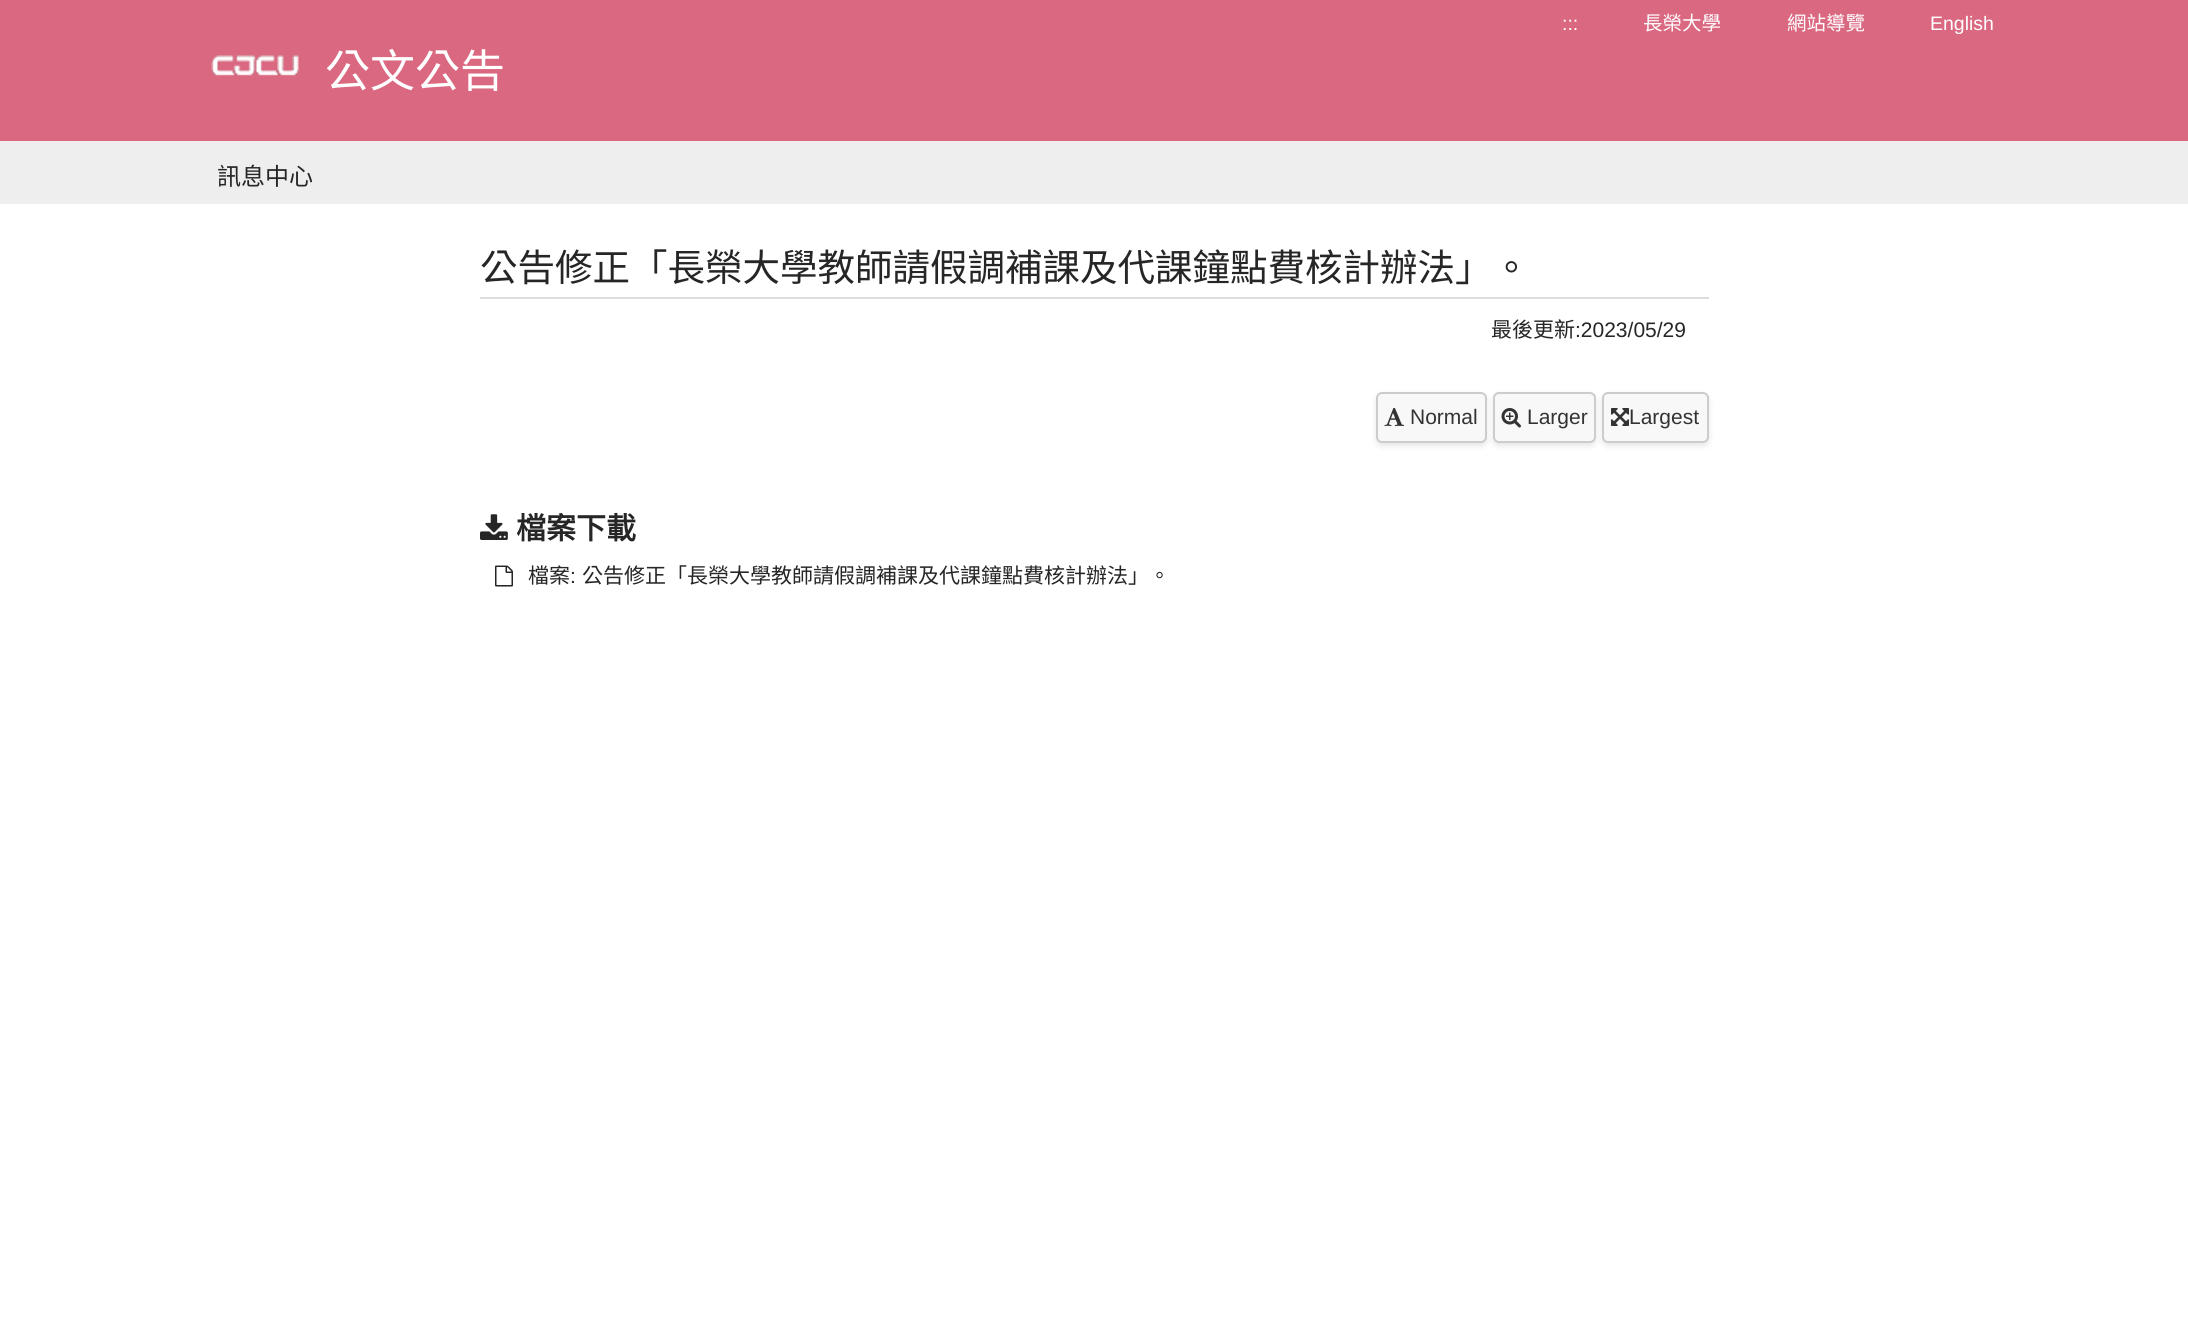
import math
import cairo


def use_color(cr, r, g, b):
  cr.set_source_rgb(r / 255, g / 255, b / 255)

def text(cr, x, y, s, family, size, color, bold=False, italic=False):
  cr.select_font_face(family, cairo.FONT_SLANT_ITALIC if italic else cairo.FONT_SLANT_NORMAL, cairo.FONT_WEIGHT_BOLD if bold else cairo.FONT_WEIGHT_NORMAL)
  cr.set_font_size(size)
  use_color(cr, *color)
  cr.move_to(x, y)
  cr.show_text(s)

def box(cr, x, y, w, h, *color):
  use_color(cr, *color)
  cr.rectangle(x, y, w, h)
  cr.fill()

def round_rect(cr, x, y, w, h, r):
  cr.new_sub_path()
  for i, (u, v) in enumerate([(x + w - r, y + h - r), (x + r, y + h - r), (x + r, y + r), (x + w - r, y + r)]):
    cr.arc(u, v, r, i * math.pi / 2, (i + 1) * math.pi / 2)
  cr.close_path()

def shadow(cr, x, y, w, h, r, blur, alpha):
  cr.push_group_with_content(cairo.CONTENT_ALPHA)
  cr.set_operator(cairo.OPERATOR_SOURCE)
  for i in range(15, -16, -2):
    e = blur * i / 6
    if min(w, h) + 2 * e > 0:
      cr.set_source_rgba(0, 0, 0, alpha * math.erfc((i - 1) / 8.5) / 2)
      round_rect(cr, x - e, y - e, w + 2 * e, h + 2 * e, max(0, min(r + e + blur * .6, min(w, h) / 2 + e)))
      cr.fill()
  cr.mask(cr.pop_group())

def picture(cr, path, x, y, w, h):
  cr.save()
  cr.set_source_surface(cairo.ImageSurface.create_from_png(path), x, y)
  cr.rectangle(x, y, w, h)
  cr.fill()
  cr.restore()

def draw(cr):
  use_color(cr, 255, 255, 255)
  cr.paint()
  box(cr, 0, 0, 2188, 141, 218, 104, 129)
  picture(cr, "img_01.png", 211, 55, 88, 21)
  box(cr, 0, 141, 2188, 63, 238, 238, 238)
  box(cr, 480, 297, 1229, 2, 221, 221, 221)
  use_color(cr, 0, 0, 0)
  shadow(cr, 1376, 395, 111, 51, 6, 3, 0.1)
  use_color(cr, 248, 248, 248)
  round_rect(cr, 1377, 393, 109, 49, 5)
  cr.fill_preserve()
  use_color(cr, 204, 204, 204)
  cr.stroke()
  picture(cr, "img_02.png", 1384, 408, 20, 18)
  use_color(cr, 0, 0, 0)
  shadow(cr, 1493, 395, 103, 51, 6, 3, 0.1)
  use_color(cr, 248, 248, 248)
  round_rect(cr, 1494, 393, 101, 49, 5)
  cr.fill_preserve()
  use_color(cr, 204, 204, 204)
  cr.stroke()
  picture(cr, "img_03.png", 1501, 408, 20, 20)
  use_color(cr, 0, 0, 0)
  shadow(cr, 1602, 395, 107, 51, 6, 3, 0.1)
  use_color(cr, 248, 248, 248)
  round_rect(cr, 1603, 393, 105, 49, 5)
  cr.fill_preserve()
  use_color(cr, 204, 204, 204)
  cr.stroke()
  picture(cr, "img_04.png", 1611, 408, 18, 18)
  picture(cr, "img_05.png", 480, 514, 28, 26)
  picture(cr, "img_06.png", 495, 565, 18, 22)
  text(cr, 1562, 30, ":::", "Liberation Sans", 19.5, (255, 255, 255))
  text(cr, 1643, 30, "長榮大學", "Noto Sans CJK TC", 19.5, (255, 255, 255))
  text(cr, 1787, 30, "網站導覽", "Noto Sans CJK TC", 19.5, (255, 255, 255))
  text(cr, 1930, 30, "English", "Liberation Sans", 19.5, (255, 255, 255))
  text(cr, 325, 87, "公文公告", "Noto Sans CJK TC", 45, (255, 255, 255))
  text(cr, 217, 185, "訊息中心", "Noto Sans CJK TC", 24, (38, 38, 38))
  text(cr, 480, 281, "公告修正「長榮大學教師請假調補課及代課鐘點費核計辦法」。", "Noto Sans CJK TC", 37.5, (38, 38, 38))
  text(cr, 1491, 337, "最後更新", "Noto Sans CJK TC", 21, (38, 38, 38))
  text(cr, 1575, 337, ":2023/05/29", "Liberation Sans", 21, (38, 38, 38))
  text(cr, 1410, 424, "Normal", "Liberation Sans", 21, (51, 51, 51))
  text(cr, 1527, 424, "Larger", "Liberation Sans", 21, (51, 51, 51))
  text(cr, 1629, 424, "Largest", "Liberation Sans", 21, (51, 51, 51))
  text(cr, 516, 539, "檔案下載", "Noto Sans CJK TC", 30, (38, 38, 38), bold=True)
  text(cr, 528, 583, "檔案", "Noto Sans CJK TC", 21, (38, 38, 38))
  text(cr, 570, 583, ":", "Liberation Sans", 21, (38, 38, 38))
  text(cr, 582, 583, "公告修正「長榮大學教師請假調補課及代課鐘點費核計辦法」。", "Noto Sans CJK TC", 21, (38, 38, 38))


surface = cairo.ImageSurface(cairo.FORMAT_RGB24, 2188, 1334)
cr = cairo.Context(surface)
options = cairo.FontOptions()
options.set_hint_metrics(cairo.HINT_METRICS_OFF)
options.set_hint_style(cairo.HINT_STYLE_NONE)
cr.set_font_options(options)
cr.set_miter_limit(4)
draw(cr)
surface.write_to_png("out.png")
